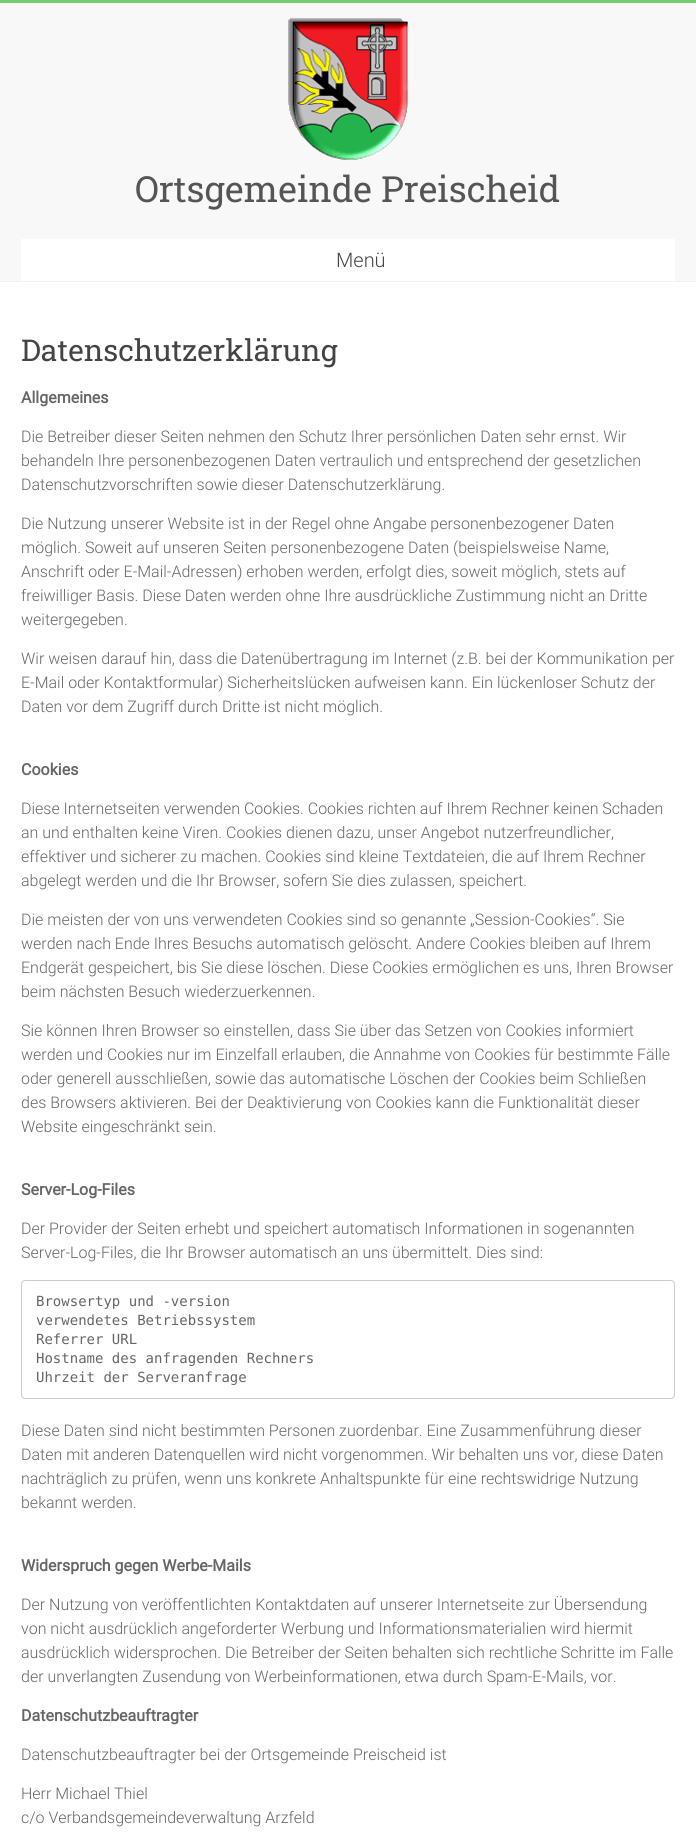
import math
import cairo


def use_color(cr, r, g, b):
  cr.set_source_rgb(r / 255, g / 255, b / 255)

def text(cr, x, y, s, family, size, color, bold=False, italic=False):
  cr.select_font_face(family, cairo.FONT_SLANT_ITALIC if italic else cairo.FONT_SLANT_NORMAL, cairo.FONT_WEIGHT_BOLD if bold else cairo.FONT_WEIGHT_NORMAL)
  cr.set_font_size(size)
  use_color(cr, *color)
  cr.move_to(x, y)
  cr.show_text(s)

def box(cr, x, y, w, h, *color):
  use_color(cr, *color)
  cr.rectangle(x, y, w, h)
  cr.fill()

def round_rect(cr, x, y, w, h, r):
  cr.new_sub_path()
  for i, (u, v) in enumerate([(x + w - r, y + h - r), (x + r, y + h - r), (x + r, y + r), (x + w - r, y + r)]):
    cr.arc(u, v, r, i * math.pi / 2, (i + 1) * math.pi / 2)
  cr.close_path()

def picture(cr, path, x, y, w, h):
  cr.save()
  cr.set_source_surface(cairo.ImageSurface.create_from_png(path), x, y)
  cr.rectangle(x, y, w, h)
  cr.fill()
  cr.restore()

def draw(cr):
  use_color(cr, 255, 255, 255)
  cr.paint()
  box(cr, 0, 0, 696, 3, 119, 204, 109)
  box(cr, 0, 3, 696, 278, 248, 248, 248)
  box(cr, 0, 281, 696, 1, 242, 242, 242)
  picture(cr, "img_01.png", 288, 18, 120, 142)
  box(cr, 21, 239, 654, 42, 255, 255, 255)
  round_rect(cr, 21.5, 1280.5, 653, 118, 3.5)
  use_color(cr, 204, 204, 204)
  cr.set_line_width(1)
  cr.stroke()
  text(cr, 135, 202, "Ortsgemeinde Preischeid", "Roboto Slab", 36, (85, 85, 85))
  text(cr, 336, 267, "Menü", "Roboto Light", 20, (68, 68, 68))
  text(cr, 21, 361, "Datenschutzerklärung", "Roboto Slab", 30, (68, 68, 68))
  text(cr, 21, 403, "Allgemeines", "Roboto", 16, (102, 102, 102), bold=True)
  text(cr, 21, 442, "Die Betreiber dieser Seiten nehmen den Schutz Ihrer persönlichen Daten sehr ernst. Wir", "Roboto Light", 16, (102, 102, 102))
  text(cr, 21, 466, "behandeln Ihre personenbezogenen Daten vertraulich und entsprechend der gesetzlichen", "Roboto Light", 16, (102, 102, 102))
  text(cr, 21, 490, "Datenschutzvorschriften sowie dieser Datenschutzerklärung.", "Roboto Light", 16, (102, 102, 102))
  text(cr, 21, 529, "Die Nutzung unserer Website ist in der Regel ohne Angabe personenbezogener Daten", "Roboto Light", 16, (102, 102, 102))
  text(cr, 21, 553, "möglich. Soweit auf unseren Seiten personenbezogene Daten (beispielsweise Name,", "Roboto Light", 16, (102, 102, 102))
  text(cr, 21, 577, "Anschrift oder E-Mail-Adressen) erhoben werden, erfolgt dies, soweit möglich, stets auf", "Roboto Light", 16, (102, 102, 102))
  text(cr, 21, 601, "freiwilliger Basis. Diese Daten werden ohne Ihre ausdrückliche Zustimmung nicht an Dritte", "Roboto Light", 16, (102, 102, 102))
  text(cr, 21, 625, "weitergegeben.", "Roboto Light", 16, (102, 102, 102))
  text(cr, 21, 664, "Wir weisen darauf hin, dass die Datenübertragung im Internet (z.B. bei der Kommunikation per", "Roboto Light", 16, (102, 102, 102))
  text(cr, 21, 688, "E-Mail oder Kontaktformular) Sicherheitslücken aufweisen kann. Ein lückenloser Schutz der", "Roboto Light", 16, (102, 102, 102))
  text(cr, 21, 712, "Daten vor dem Zugriff durch Dritte ist nicht möglich.", "Roboto Light", 16, (102, 102, 102))
  text(cr, 21, 775, "Cookies", "Roboto", 16, (102, 102, 102), bold=True)
  text(cr, 21, 814, "Diese Internetseiten verwenden Cookies. Cookies richten auf Ihrem Rechner keinen Schaden", "Roboto Light", 16, (102, 102, 102))
  text(cr, 21, 838, "an und enthalten keine Viren. Cookies dienen dazu, unser Angebot nutzerfreundlicher,", "Roboto Light", 16, (102, 102, 102))
  text(cr, 21, 862, "effektiver und sicherer zu machen. Cookies sind kleine Textdateien, die auf Ihrem Rechner", "Roboto Light", 16, (102, 102, 102))
  text(cr, 21, 886, "abgelegt werden und die Ihr Browser, sofern Sie dies zulassen, speichert.", "Roboto Light", 16, (102, 102, 102))
  text(cr, 21, 925, "Die meisten der von uns verwendeten Cookies sind so genannte „Session-Cookies“. Sie", "Roboto Light", 16, (102, 102, 102))
  text(cr, 21, 949, "werden nach Ende Ihres Besuchs automatisch gelöscht. Andere Cookies bleiben auf Ihrem", "Roboto Light", 16, (102, 102, 102))
  text(cr, 21, 973, "Endgerät gespeichert, bis Sie diese löschen. Diese Cookies ermöglichen es uns, Ihren Browser", "Roboto Light", 16, (102, 102, 102))
  text(cr, 21, 997, "beim nächsten Besuch wiederzuerkennen.", "Roboto Light", 16, (102, 102, 102))
  text(cr, 21, 1036, "Sie können Ihren Browser so einstellen, dass Sie über das Setzen von Cookies informiert", "Roboto Light", 16, (102, 102, 102))
  text(cr, 21, 1060, "werden und Cookies nur im Einzelfall erlauben, die Annahme von Cookies für bestimmte Fälle", "Roboto Light", 16, (102, 102, 102))
  text(cr, 21, 1084, "oder generell ausschließen, sowie das automatische Löschen der Cookies beim Schließen", "Roboto Light", 16, (102, 102, 102))
  text(cr, 21, 1108, "des Browsers aktivieren. Bei der Deaktivierung von Cookies kann die Funktionalität dieser", "Roboto Light", 16, (102, 102, 102))
  text(cr, 21, 1132, "Website eingeschränkt sein.", "Roboto Light", 16, (102, 102, 102))
  text(cr, 21, 1195, "Server-Log-Files", "Roboto", 16, (102, 102, 102), bold=True)
  text(cr, 21, 1234, "Der Provider der Seiten erhebt und speichert automatisch Informationen in sogenannten", "Roboto Light", 16, (102, 102, 102))
  text(cr, 21, 1258, "Server-Log-Files, die Ihr Browser automatisch an uns übermittelt. Dies sind:", "Roboto Light", 16, (102, 102, 102))
  text(cr, 36, 1306, "Browsertyp und -version", "DejaVu Sans Mono", 14, (102, 102, 102))
  text(cr, 36, 1325, "verwendetes Betriebssystem", "DejaVu Sans Mono", 14, (102, 102, 102))
  text(cr, 36, 1344, "Referrer URL", "DejaVu Sans Mono", 14, (102, 102, 102))
  text(cr, 36, 1363, "Hostname des anfragenden Rechners", "DejaVu Sans Mono", 14, (102, 102, 102))
  text(cr, 36, 1382, "Uhrzeit der Serveranfrage", "DejaVu Sans Mono", 14, (102, 102, 102))
  text(cr, 21, 1436, "Diese Daten sind nicht bestimmten Personen zuordenbar. Eine Zusammenführung dieser", "Roboto Light", 16, (102, 102, 102))
  text(cr, 21, 1460, "Daten mit anderen Datenquellen wird nicht vorgenommen. Wir behalten uns vor, diese Daten", "Roboto Light", 16, (102, 102, 102))
  text(cr, 21, 1484, "nachträglich zu prüfen, wenn uns konkrete Anhaltspunkte für eine rechtswidrige Nutzung", "Roboto Light", 16, (102, 102, 102))
  text(cr, 21, 1508, "bekannt werden.", "Roboto Light", 16, (102, 102, 102))
  text(cr, 21, 1571, "Widerspruch gegen Werbe-Mails", "Roboto", 16, (102, 102, 102), bold=True)
  text(cr, 21, 1610, "Der Nutzung von veröffentlichten Kontaktdaten auf unserer Internetseite zur Übersendung", "Roboto Light", 16, (102, 102, 102))
  text(cr, 21, 1634, "von nicht ausdrücklich angeforderter Werbung und Informationsmaterialien wird hiermit", "Roboto Light", 16, (102, 102, 102))
  text(cr, 21, 1658, "ausdrücklich widersprochen. Die Betreiber der Seiten behalten sich rechtliche Schritte im Falle", "Roboto Light", 16, (102, 102, 102))
  text(cr, 21, 1682, "der unverlangten Zusendung von Werbeinformationen, etwa durch Spam-E-Mails, vor.", "Roboto Light", 16, (102, 102, 102))
  text(cr, 21, 1721, "Datenschutzbeauftragter", "Roboto", 16, (102, 102, 102), bold=True)
  text(cr, 21, 1760, "Datenschutzbeauftragter bei der Ortsgemeinde Preischeid ist", "Roboto Light", 16, (102, 102, 102))
  text(cr, 21, 1799, "Herr Michael Thiel", "Roboto Light", 16, (102, 102, 102))
  text(cr, 21, 1823, "c/o Verbandsgemeindeverwaltung Arzfeld", "Roboto Light", 16, (102, 102, 102))


surface = cairo.ImageSurface(cairo.FORMAT_RGB24, 696, 1843)
cr = cairo.Context(surface)
options = cairo.FontOptions()
options.set_hint_metrics(cairo.HINT_METRICS_OFF)
options.set_hint_style(cairo.HINT_STYLE_NONE)
cr.set_font_options(options)
cr.set_miter_limit(4)
draw(cr)
surface.write_to_png("out.png")
